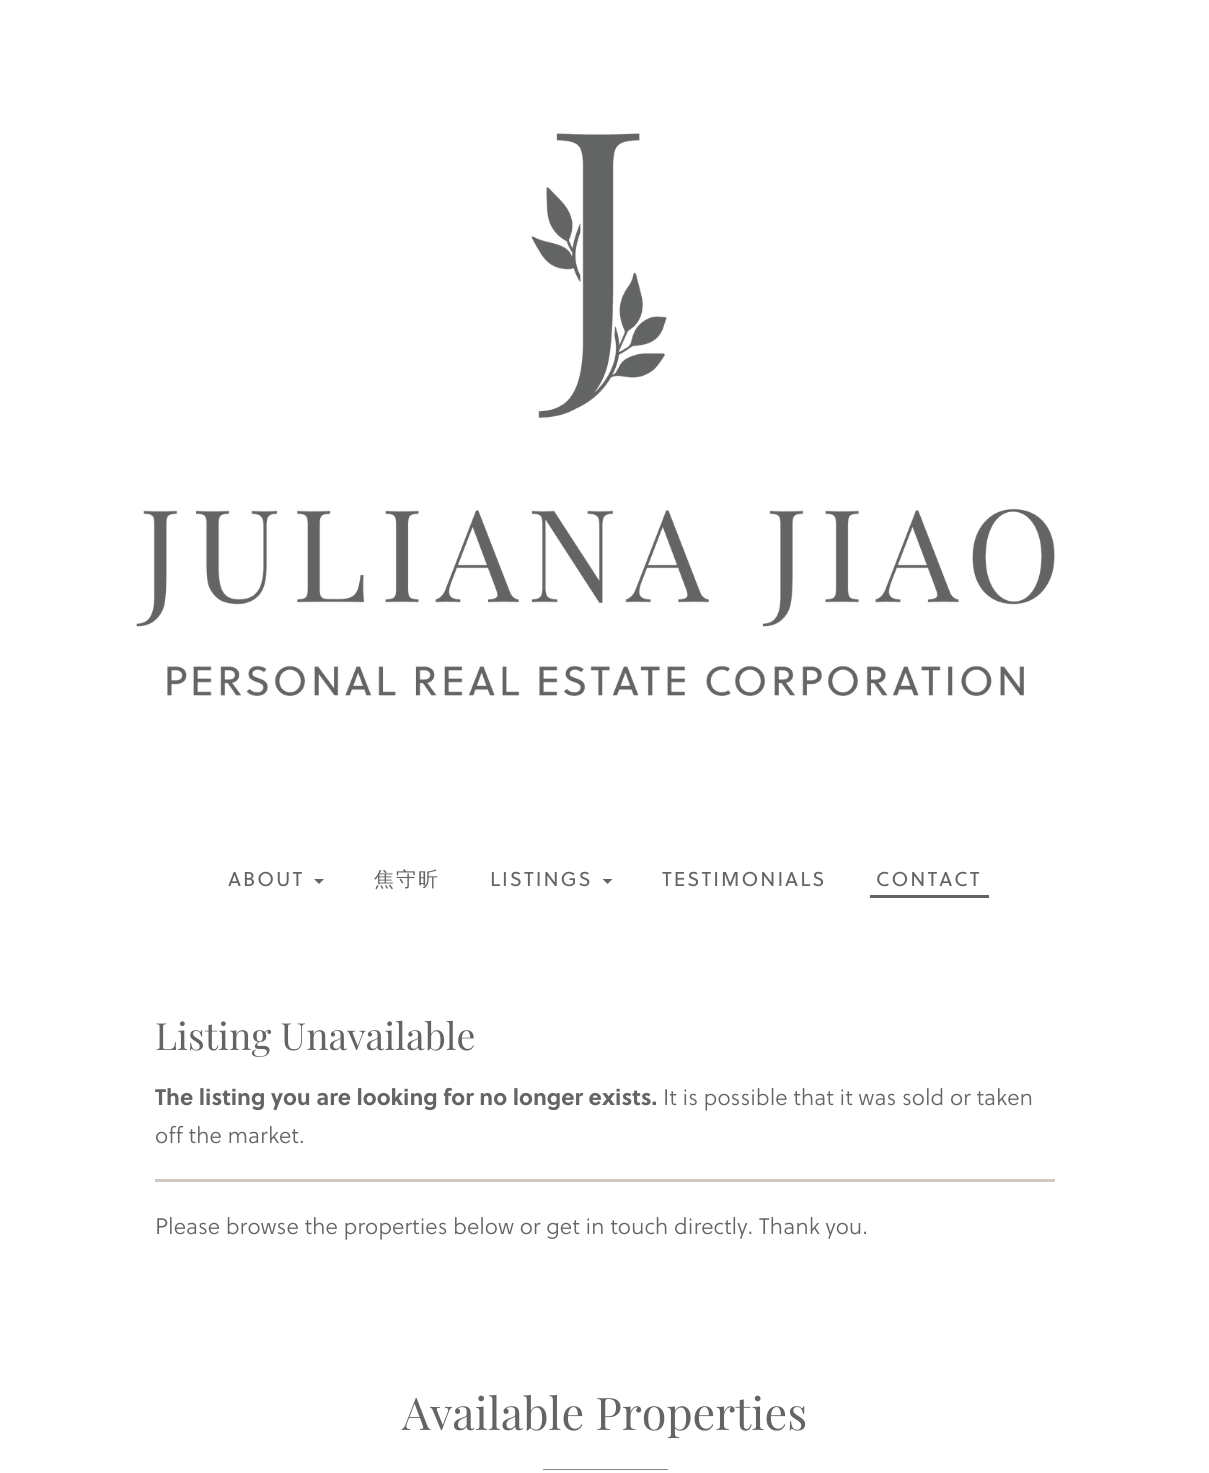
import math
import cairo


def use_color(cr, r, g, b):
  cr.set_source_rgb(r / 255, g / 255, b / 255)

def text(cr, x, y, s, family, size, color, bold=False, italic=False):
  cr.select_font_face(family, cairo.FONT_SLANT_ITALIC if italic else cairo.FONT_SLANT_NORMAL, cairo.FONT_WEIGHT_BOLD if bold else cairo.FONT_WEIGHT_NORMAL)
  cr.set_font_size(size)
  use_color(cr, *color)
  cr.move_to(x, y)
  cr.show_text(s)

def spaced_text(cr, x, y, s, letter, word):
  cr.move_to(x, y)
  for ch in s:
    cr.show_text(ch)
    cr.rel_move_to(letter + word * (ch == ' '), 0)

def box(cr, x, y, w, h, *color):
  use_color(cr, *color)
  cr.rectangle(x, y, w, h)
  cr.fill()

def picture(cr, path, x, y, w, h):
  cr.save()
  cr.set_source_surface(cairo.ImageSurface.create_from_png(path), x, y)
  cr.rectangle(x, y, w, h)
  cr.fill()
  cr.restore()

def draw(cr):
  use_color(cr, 255, 255, 255)
  cr.paint()
  picture(cr, "img_01.png", 136, 133, 919, 563)
  use_color(cr, 99, 100, 100)
  cr.new_path()
  cr.move_to(314, 879)
  cr.line_to(324, 879)
  cr.line_to(319, 884)
  cr.close_path()
  cr.fill()
  cr.new_path()
  cr.move_to(602.5, 879)
  cr.line_to(612.5, 879)
  cr.line_to(607.5, 884)
  cr.close_path()
  cr.fill()
  box(cr, 870, 895, 119, 3, 99, 100, 100)
  box(cr, 155, 1179, 900, 3, 211, 201, 193)
  box(cr, 543, 1469, 125, 1, 136, 136, 136)
  cr.select_font_face("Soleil")
  cr.set_font_size(20)
  use_color(cr, 99, 100, 100)
  spaced_text(cr, 228, 886, "ABOUT", 2, 0)
  cr.select_font_face("WenQuanYi Zen Hei Medium")
  spaced_text(cr, 374, 886, "焦守昕", 2, 0)
  cr.select_font_face("Soleil")
  spaced_text(cr, 490, 886, "LISTINGS", 2, 0)
  spaced_text(cr, 662, 886, "TESTIMONIALS", 2, 0)
  spaced_text(cr, 876, 886, "CONTACT", 2, 0)
  text(cr, 155, 1050, "Listing Unavailable", "Playfair Display", 37.5, (99, 100, 100))
  text(cr, 155, 1105, "The listing you are looking for no longer exists.", "Soleil", 22.5, (99, 100, 100), bold=True)
  text(cr, 663, 1105, "It is possible that it was sold or taken", "Soleil Light", 22.5, (99, 100, 100))
  text(cr, 155, 1143, "off the market.", "Soleil Light", 22.5, (99, 100, 100))
  text(cr, 155, 1234, "Please browse the properties below or get in touch directly. Thank you.", "Soleil Light", 22.5, (99, 100, 100))
  text(cr, 402, 1430, "Available Properties", "Playfair Display", 45, (99, 100, 100))


surface = cairo.ImageSurface(cairo.FORMAT_RGB24, 1209, 1473)
cr = cairo.Context(surface)
options = cairo.FontOptions()
options.set_hint_metrics(cairo.HINT_METRICS_OFF)
options.set_hint_style(cairo.HINT_STYLE_NONE)
cr.set_font_options(options)
cr.set_miter_limit(4)
draw(cr)
surface.write_to_png("out.png")
